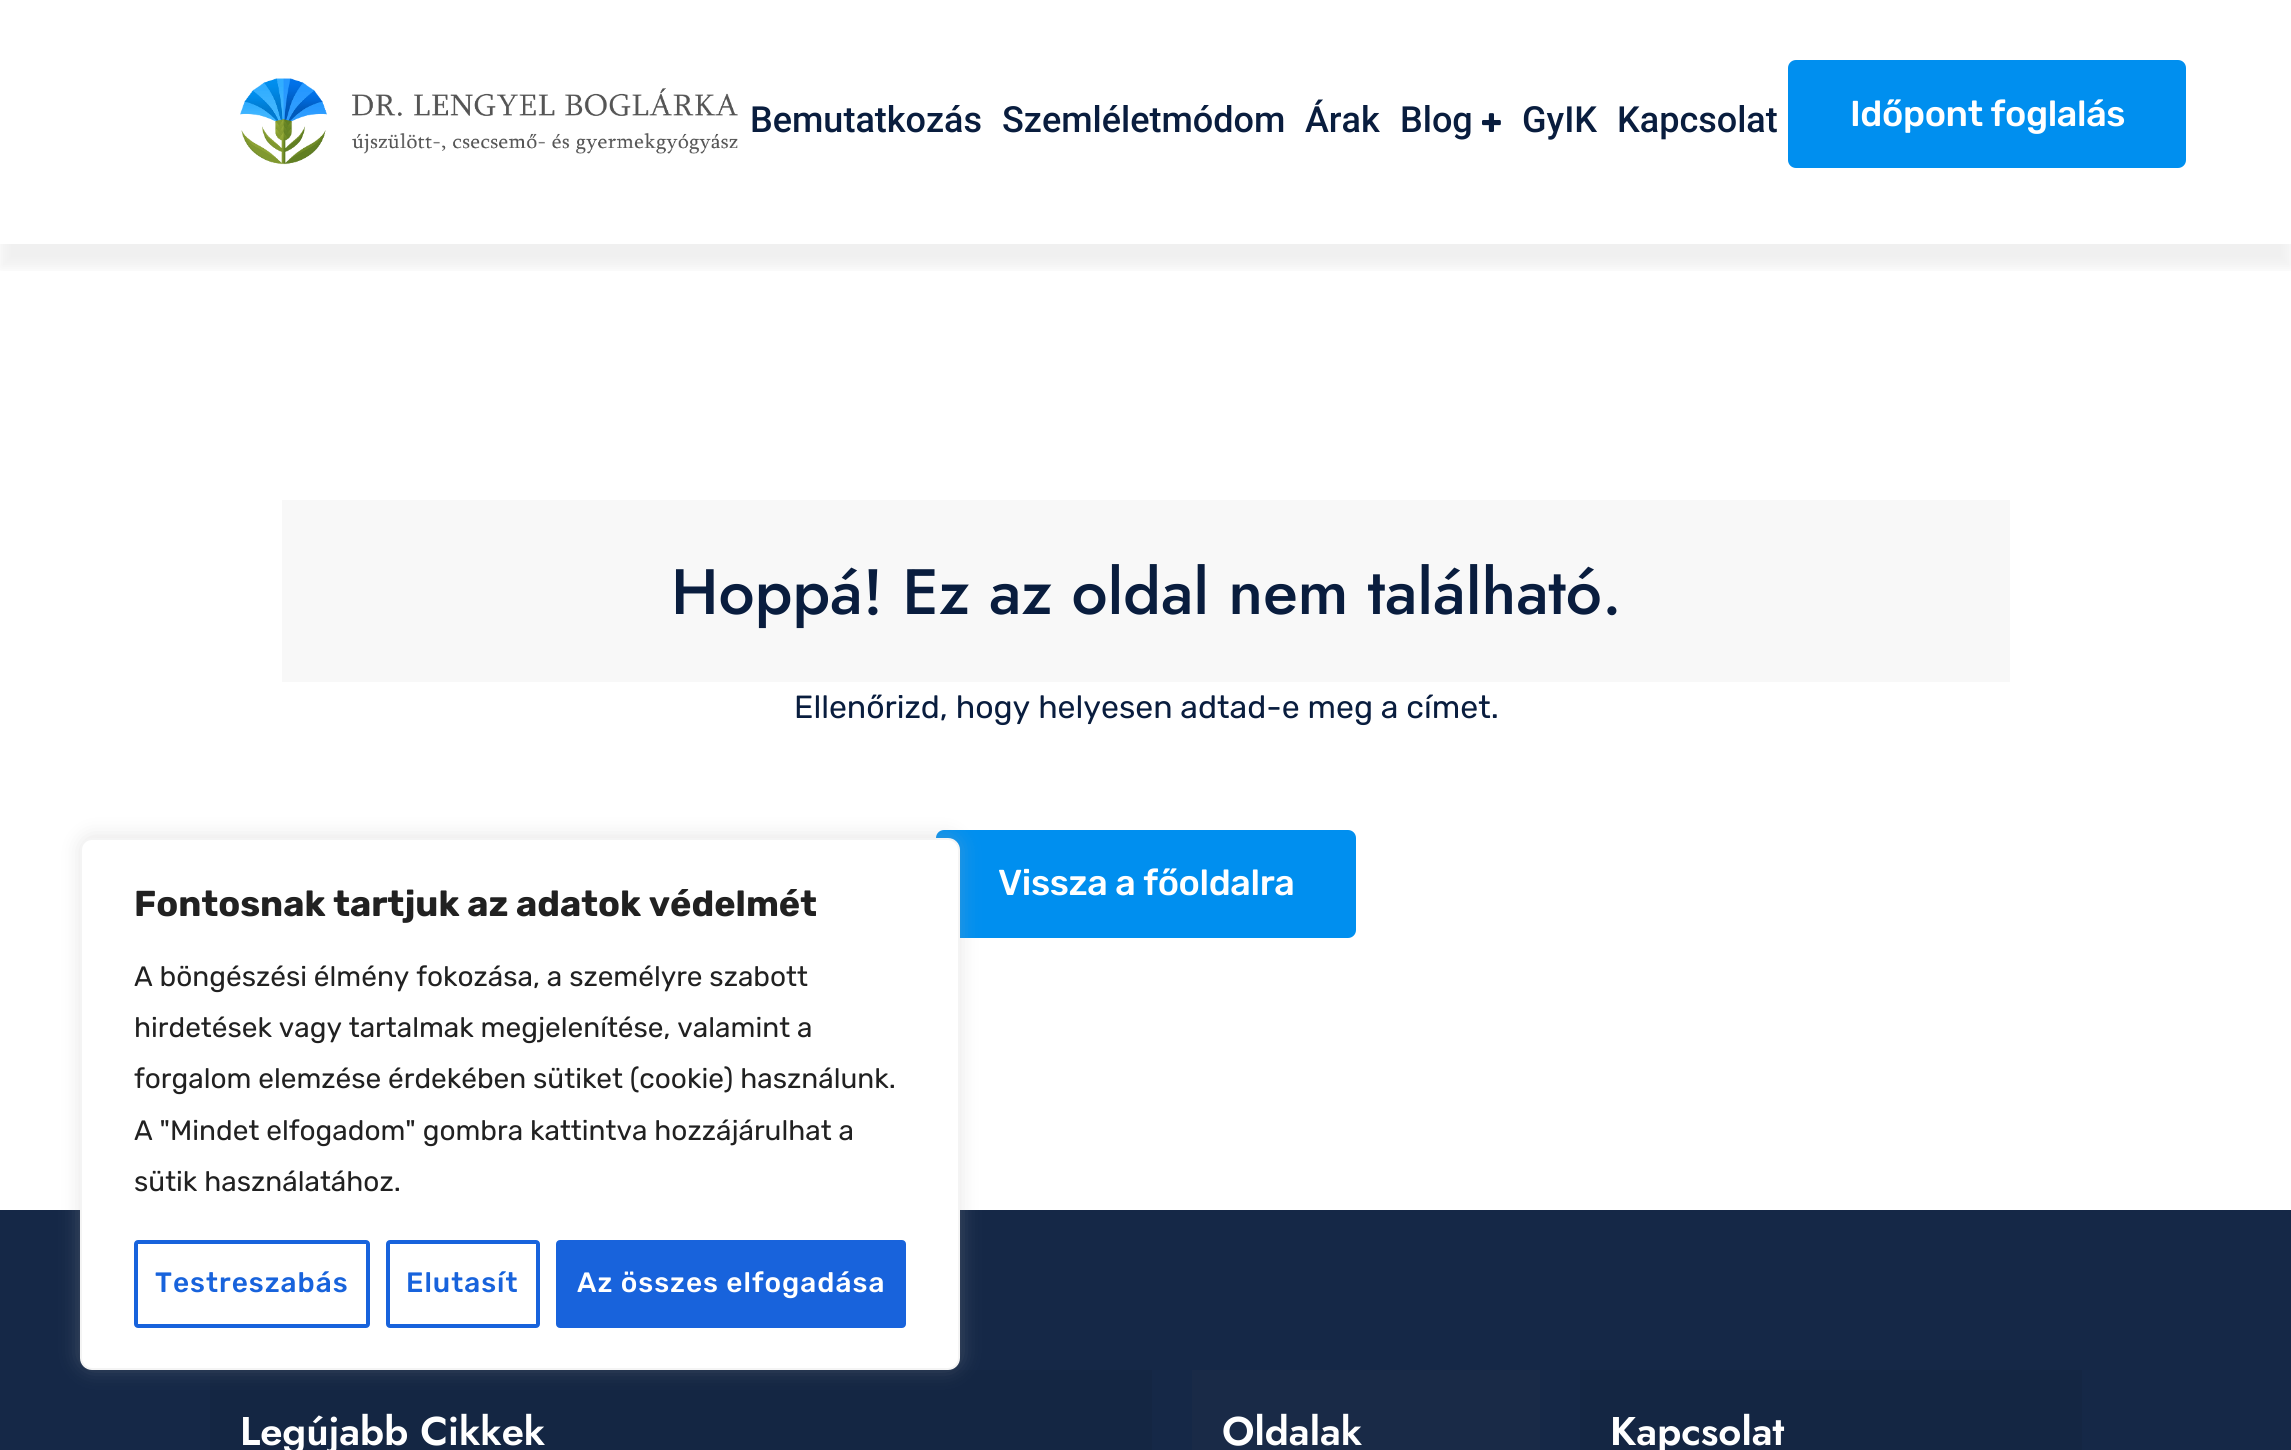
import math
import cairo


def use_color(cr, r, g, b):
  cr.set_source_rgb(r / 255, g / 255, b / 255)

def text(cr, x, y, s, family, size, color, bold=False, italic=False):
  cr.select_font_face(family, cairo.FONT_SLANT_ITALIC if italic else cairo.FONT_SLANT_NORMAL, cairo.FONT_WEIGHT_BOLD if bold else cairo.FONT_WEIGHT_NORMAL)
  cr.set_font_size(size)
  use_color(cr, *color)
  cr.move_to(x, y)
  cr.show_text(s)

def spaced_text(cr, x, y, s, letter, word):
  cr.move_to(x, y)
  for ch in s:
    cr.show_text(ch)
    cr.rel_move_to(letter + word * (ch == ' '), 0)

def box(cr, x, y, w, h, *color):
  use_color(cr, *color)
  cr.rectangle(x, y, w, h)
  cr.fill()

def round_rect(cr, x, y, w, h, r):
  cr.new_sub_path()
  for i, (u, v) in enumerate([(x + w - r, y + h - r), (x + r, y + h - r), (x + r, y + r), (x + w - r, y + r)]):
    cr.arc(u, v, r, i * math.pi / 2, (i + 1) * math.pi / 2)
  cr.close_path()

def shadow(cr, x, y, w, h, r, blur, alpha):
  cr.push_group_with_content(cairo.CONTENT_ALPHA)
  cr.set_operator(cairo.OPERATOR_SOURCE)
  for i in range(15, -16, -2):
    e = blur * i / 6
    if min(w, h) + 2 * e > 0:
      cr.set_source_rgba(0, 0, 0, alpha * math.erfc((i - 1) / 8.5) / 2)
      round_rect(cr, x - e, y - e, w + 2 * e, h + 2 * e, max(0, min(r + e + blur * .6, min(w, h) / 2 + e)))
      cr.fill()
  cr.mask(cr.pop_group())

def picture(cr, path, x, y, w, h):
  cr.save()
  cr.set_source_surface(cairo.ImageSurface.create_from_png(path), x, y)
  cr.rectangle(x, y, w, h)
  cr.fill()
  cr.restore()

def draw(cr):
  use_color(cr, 255, 255, 255)
  cr.paint()
  cr.save()
  cr.rectangle(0, 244, 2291, 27)
  cr.clip()
  use_color(cr, 0, 0, 0)
  shadow(cr, 0, 24, 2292, 244, 0, 6, 0.06)
  cr.restore()
  picture(cr, "img_01.png", 240, 78, 498, 87)
  picture(cr, "img_02.png", 1482, 113, 19, 19)
  use_color(cr, 0, 143, 239)
  round_rect(cr, 1789, 61, 396, 106, 7)
  cr.fill_preserve()
  cr.stroke()
  box(cr, 282, 500, 1728, 182, 248, 248, 248)
  use_color(cr, 0, 143, 239)
  round_rect(cr, 937, 831, 418, 106, 7)
  cr.fill_preserve()
  cr.stroke()
  box(cr, 0, 1210, 2291, 240, 21, 40, 71)
  box(cr, 210, 1370, 942, 80, 20, 38, 67)
  box(cr, 1192, 1370, 348, 80, 25, 42, 71)
  box(cr, 1580, 1370, 502, 80, 20, 38, 67)
  use_color(cr, 172, 171, 171)
  shadow(cr, 80, 836, 880, 532, 12, 10, 0.3)
  use_color(cr, 255, 255, 255)
  round_rect(cr, 81, 839, 878, 530, 11)
  cr.fill_preserve()
  use_color(cr, 244, 244, 244)
  cr.stroke()
  round_rect(cr, 136, 1242, 232, 84, 2)
  use_color(cr, 24, 99, 220)
  cr.set_line_width(4)
  cr.stroke()
  round_rect(cr, 388, 1242, 150, 84, 2)
  cr.stroke()
  round_rect(cr, 558, 1242, 346, 84, 2)
  cr.fill_preserve()
  cr.stroke()
  text(cr, 750, 132, "Bemutatkozás", "Roboto Medium", 36, (9, 29, 62))
  text(cr, 1002, 132, "Szemléletmódom", "Roboto Medium", 36, (9, 29, 62))
  text(cr, 1305, 132, "Árak", "Roboto Medium", 36, (9, 29, 62))
  text(cr, 1400, 132, "Blog", "Roboto Medium", 36, (9, 29, 62))
  text(cr, 1522, 132, "GyIK", "Roboto Medium", 36, (9, 29, 62))
  text(cr, 1617, 132, "Kapcsolat", "Roboto Medium", 36, (9, 29, 62))
  cr.select_font_face("Rubik Medium")
  use_color(cr, 255, 255, 255)
  spaced_text(cr, 1850, 126, "Időpont foglalás", -0.4, 0)
  text(cr, 671, 614, "Hoppá! Ez az oldal nem található.", "Jost Medium", 64, (9, 29, 62))
  text(cr, 794, 718, "Ellenőrizd, hogy helyesen adtad-e meg a címet.", "Rubik", 32, (9, 29, 62))
  cr.select_font_face("Rubik Medium")
  cr.set_font_size(36)
  use_color(cr, 255, 255, 255)
  spaced_text(cr, 998, 895, "Vissza a főoldalra", -0.4, 0)
  text(cr, 240, 1445, "Legújabb Cikkek", "Jost SemiBold", 40, (255, 255, 255))
  text(cr, 1222, 1445, "Oldalak", "Jost SemiBold", 40, (255, 255, 255))
  text(cr, 1610, 1445, "Kapcsolat", "Jost SemiBold", 40, (255, 255, 255))
  text(cr, 134, 916, "Fontosnak tartjuk az adatok védelmét", "Rubik", 36, (33, 33, 33), bold=True)
  text(cr, 134, 986, "A böngészési élmény fokozása, a személyre szabott", "Rubik", 28, (33, 33, 33))
  text(cr, 134, 1037, "hirdetések vagy tartalmak megjelenítése, valamint a", "Rubik", 28, (33, 33, 33))
  text(cr, 134, 1088, "forgalom elemzése érdekében sütiket (cookie) használunk.", "Rubik", 28, (33, 33, 33))
  text(cr, 134, 1140, "A \"Mindet elfogadom\" gombra kattintva hozzájárulhat a", "Rubik", 28, (33, 33, 33))
  text(cr, 134, 1191, "sütik használatához.", "Rubik", 28, (33, 33, 33))
  cr.select_font_face("Rubik Medium")
  use_color(cr, 24, 99, 220)
  spaced_text(cr, 155, 1292, "Testreszabás", 1, 0)
  spaced_text(cr, 406, 1292, "Elutasít", 1, 0)
  use_color(cr, 255, 255, 255)
  spaced_text(cr, 577, 1292, "Az összes elfogadása", 1, 0)


surface = cairo.ImageSurface(cairo.FORMAT_RGB24, 2291, 1450)
cr = cairo.Context(surface)
options = cairo.FontOptions()
options.set_hint_metrics(cairo.HINT_METRICS_OFF)
options.set_hint_style(cairo.HINT_STYLE_NONE)
cr.set_font_options(options)
cr.set_miter_limit(4)
draw(cr)
surface.write_to_png("out.png")
